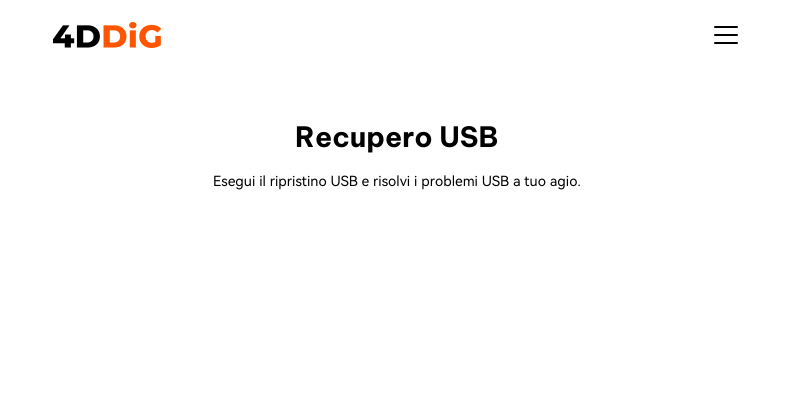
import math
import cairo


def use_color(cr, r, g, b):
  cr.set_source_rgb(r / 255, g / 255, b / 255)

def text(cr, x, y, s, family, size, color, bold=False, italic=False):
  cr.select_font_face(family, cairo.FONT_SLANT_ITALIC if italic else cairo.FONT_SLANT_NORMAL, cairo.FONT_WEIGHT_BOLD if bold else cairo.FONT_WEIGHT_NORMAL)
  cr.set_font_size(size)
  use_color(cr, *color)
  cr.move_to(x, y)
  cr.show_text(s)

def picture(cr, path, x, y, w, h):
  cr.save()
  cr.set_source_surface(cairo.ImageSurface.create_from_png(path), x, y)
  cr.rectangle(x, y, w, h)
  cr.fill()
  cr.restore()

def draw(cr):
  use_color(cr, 255, 255, 255)
  cr.paint()
  picture(cr, "img_01.png", 53, 22, 109, 26)
  picture(cr, "img_02.png", 714, 26, 24, 18)
  text(cr, 295, 147, "Recupero USB", "Be Vietnam Pro", 28, (0, 0, 0), bold=True)
  text(cr, 213, 186, "Esegui il ripristino USB e risolvi i problemi USB a tuo agio.", "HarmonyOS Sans", 14, (0, 0, 0))


surface = cairo.ImageSurface(cairo.FORMAT_RGB24, 794, 420)
cr = cairo.Context(surface)
options = cairo.FontOptions()
options.set_hint_metrics(cairo.HINT_METRICS_OFF)
options.set_hint_style(cairo.HINT_STYLE_NONE)
cr.set_font_options(options)
cr.set_miter_limit(4)
draw(cr)
surface.write_to_png("out.png")
